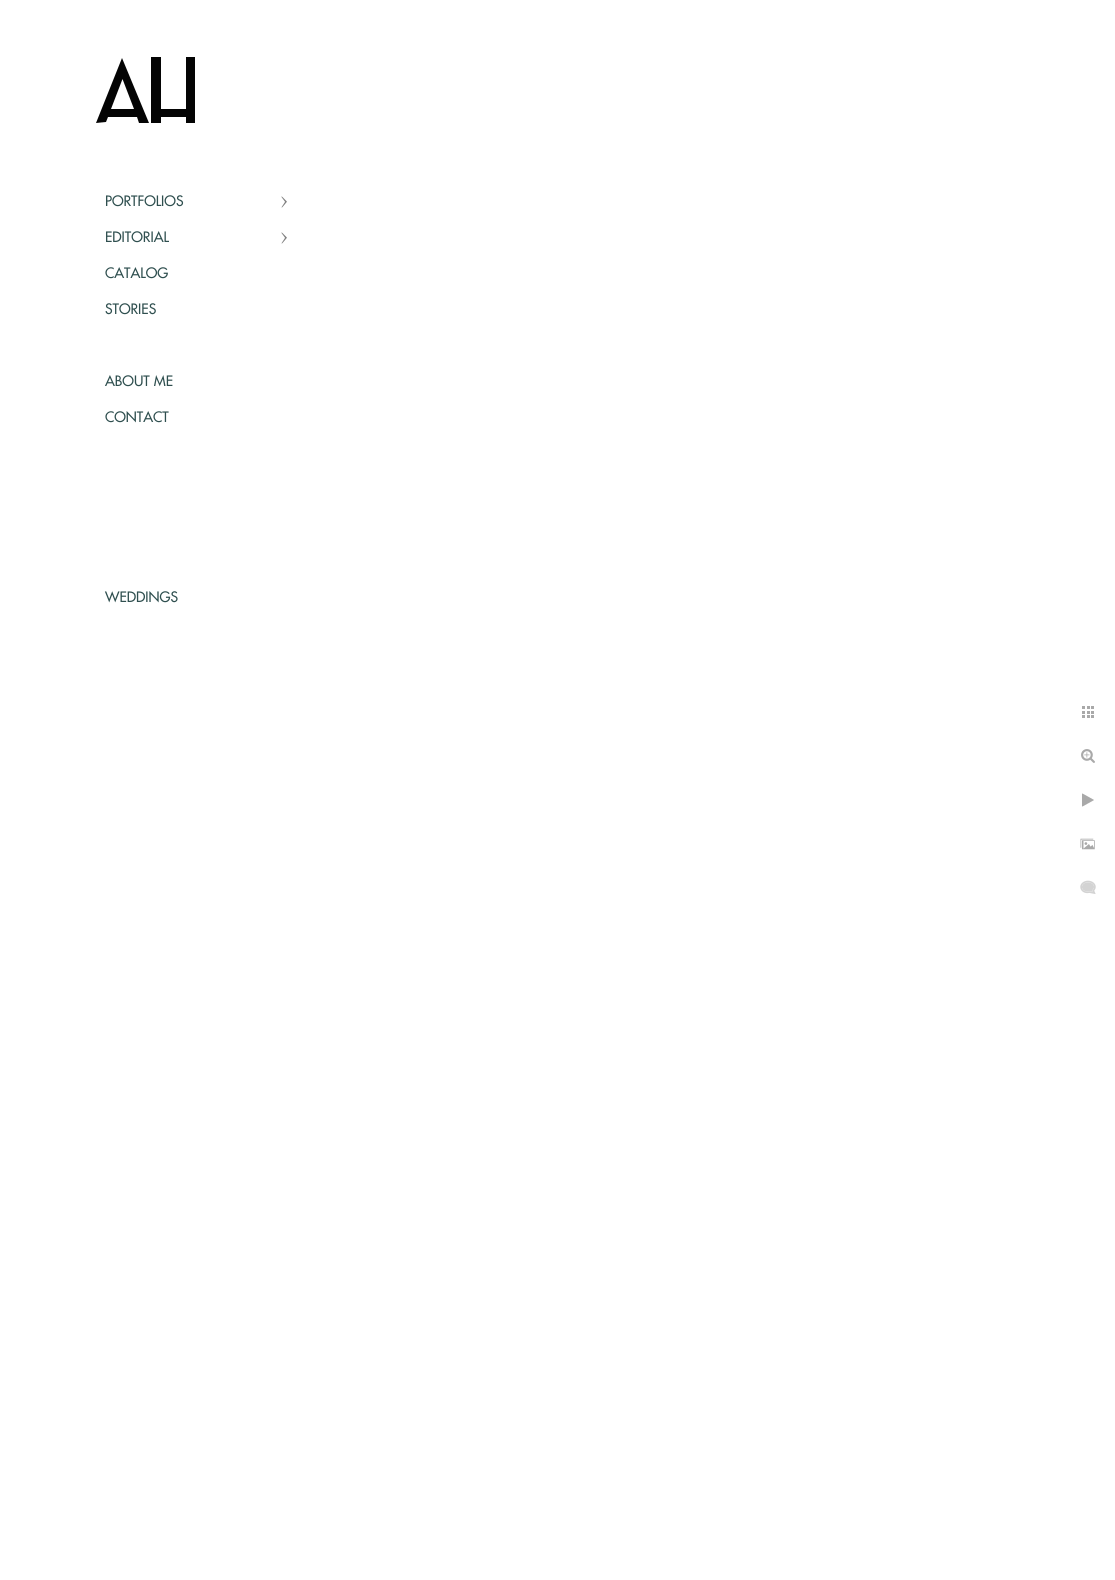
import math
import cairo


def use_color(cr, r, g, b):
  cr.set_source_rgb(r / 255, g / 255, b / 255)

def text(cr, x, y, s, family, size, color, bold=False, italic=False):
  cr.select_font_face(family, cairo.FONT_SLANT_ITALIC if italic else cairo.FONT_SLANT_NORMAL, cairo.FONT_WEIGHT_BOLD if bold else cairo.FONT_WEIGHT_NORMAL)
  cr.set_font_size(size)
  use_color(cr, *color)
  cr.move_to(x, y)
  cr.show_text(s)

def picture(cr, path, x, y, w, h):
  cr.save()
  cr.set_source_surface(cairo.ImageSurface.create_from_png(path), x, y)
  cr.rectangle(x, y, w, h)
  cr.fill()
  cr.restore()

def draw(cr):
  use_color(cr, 255, 255, 255)
  cr.paint()
  use_color(cr, 4, 4, 4)
  cr.new_path()
  cr.move_to(96, 123)
  cr.line_to(122, 58)
  cr.line_to(149, 123)
  cr.line_to(139, 123)
  cr.line_to(137, 117)
  cr.line_to(108, 117)
  cr.line_to(106, 122)
  cr.close_path()
  cr.fill()
  cr.new_path()
  cr.move_to(151, 57)
  cr.line_to(161, 57)
  cr.line_to(161, 109)
  cr.line_to(186, 109)
  cr.line_to(186, 57)
  cr.line_to(195, 57)
  cr.line_to(195, 123)
  cr.line_to(186, 123)
  cr.line_to(186, 117)
  cr.line_to(161, 117)
  cr.line_to(161, 123)
  cr.line_to(151, 123)
  cr.close_path()
  cr.fill()
  use_color(cr, 255, 255, 255)
  cr.new_path()
  cr.move_to(122.5, 79)
  cr.line_to(134, 109)
  cr.line_to(111, 109)
  cr.close_path()
  cr.fill()
  picture(cr, "img_01.png", 281, 196, 6, 12)
  picture(cr, "img_01.png", 281, 232, 6, 12)
  picture(cr, "img_02.png", 1082, 706, 12, 12)
  picture(cr, "img_03.png", 1081, 749, 14, 14)
  picture(cr, "img_04.png", 1082, 793, 12, 14)
  picture(cr, "img_05.png", 1080, 838, 15, 12)
  picture(cr, "img_06.png", 1080, 880, 16, 14)
  text(cr, 105, 206, "PORTFOLIOS", "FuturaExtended", 14, (47, 79, 79))
  text(cr, 105, 242, "EDITORIAL", "FuturaExtended", 14, (47, 79, 79))
  text(cr, 105, 278, "CATALOG", "FuturaExtended", 14, (47, 79, 79))
  text(cr, 105, 314, "STORIES", "FuturaExtended", 14, (47, 79, 79))
  text(cr, 105, 386, "ABOUT ME", "FuturaExtended", 14, (47, 79, 79))
  text(cr, 105, 422, "CONTACT", "FuturaExtended", 14, (47, 79, 79))
  text(cr, 105, 602, "WEDDINGS", "FuturaExtended", 14, (47, 79, 79))


surface = cairo.ImageSurface(cairo.FORMAT_RGB24, 1115, 1580)
cr = cairo.Context(surface)
options = cairo.FontOptions()
options.set_hint_metrics(cairo.HINT_METRICS_OFF)
options.set_hint_style(cairo.HINT_STYLE_NONE)
cr.set_font_options(options)
cr.set_miter_limit(4)
draw(cr)
surface.write_to_png("out.png")
